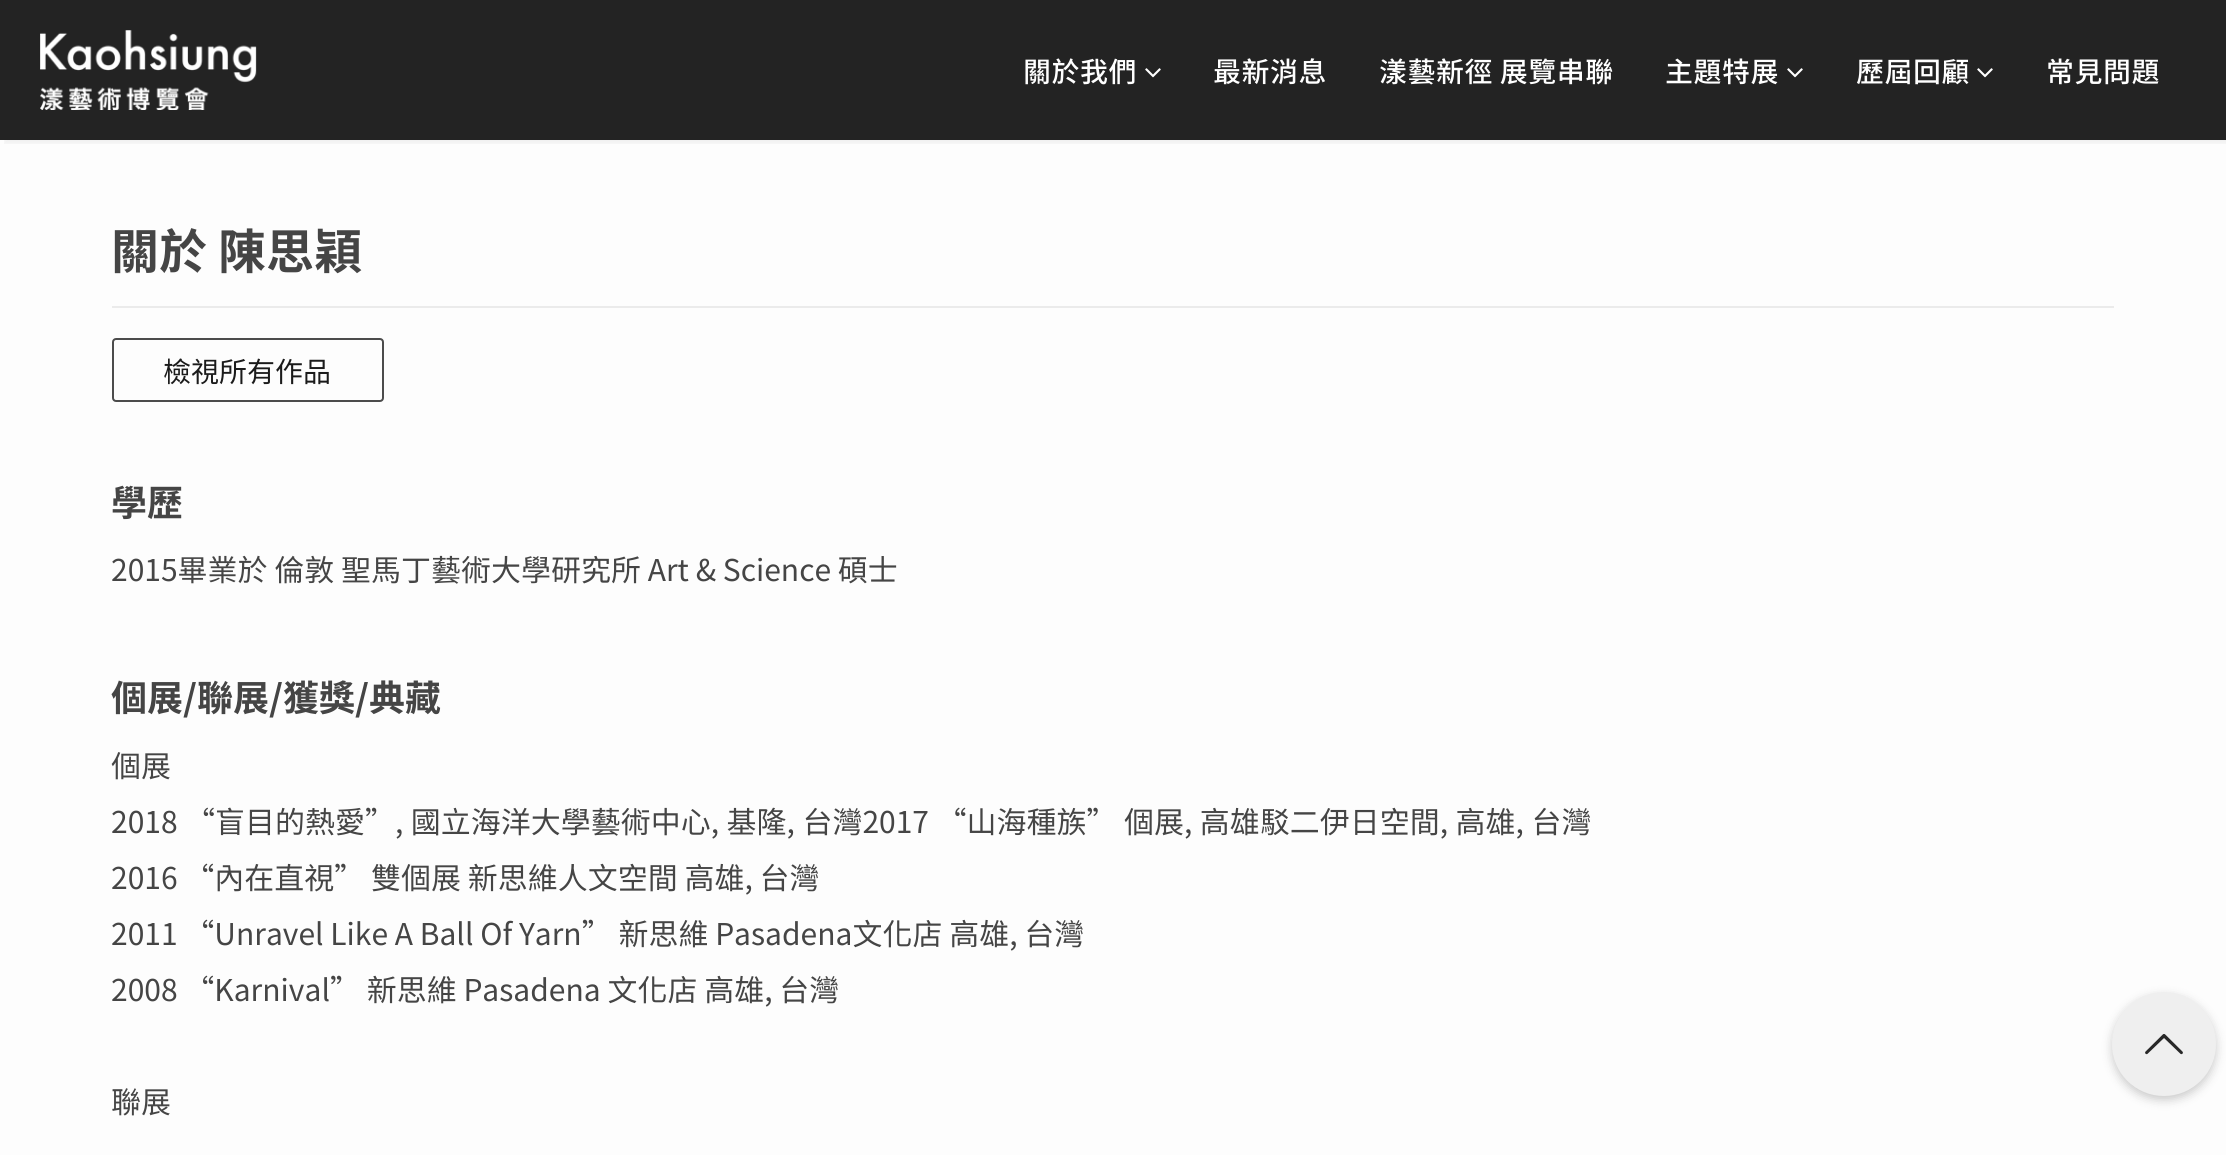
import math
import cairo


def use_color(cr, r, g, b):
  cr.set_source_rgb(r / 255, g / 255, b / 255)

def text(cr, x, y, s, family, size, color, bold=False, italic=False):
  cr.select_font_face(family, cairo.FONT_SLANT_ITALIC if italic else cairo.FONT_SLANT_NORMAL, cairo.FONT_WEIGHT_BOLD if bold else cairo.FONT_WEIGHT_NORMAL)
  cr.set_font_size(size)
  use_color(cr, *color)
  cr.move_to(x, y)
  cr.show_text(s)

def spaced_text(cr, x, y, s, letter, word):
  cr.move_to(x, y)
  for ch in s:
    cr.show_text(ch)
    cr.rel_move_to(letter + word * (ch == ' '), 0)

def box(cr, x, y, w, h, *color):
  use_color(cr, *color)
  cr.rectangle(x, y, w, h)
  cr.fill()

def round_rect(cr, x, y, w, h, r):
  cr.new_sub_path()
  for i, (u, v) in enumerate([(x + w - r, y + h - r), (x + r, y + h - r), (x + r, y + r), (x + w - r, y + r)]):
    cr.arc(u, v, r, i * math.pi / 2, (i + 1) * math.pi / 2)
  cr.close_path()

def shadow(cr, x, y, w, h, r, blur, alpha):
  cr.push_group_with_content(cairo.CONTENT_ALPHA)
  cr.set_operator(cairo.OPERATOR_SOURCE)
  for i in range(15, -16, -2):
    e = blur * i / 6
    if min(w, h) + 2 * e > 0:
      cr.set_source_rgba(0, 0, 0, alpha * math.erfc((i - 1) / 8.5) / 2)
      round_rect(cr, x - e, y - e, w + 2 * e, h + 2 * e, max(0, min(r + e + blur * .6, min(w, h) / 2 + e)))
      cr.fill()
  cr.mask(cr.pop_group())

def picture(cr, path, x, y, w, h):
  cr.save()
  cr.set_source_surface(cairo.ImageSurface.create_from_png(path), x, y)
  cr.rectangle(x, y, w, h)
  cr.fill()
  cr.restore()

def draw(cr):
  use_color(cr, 253, 253, 253)
  cr.paint()
  box(cr, 0, 0, 2226, 140, 35, 35, 35)
  cr.save()
  cr.rectangle(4, 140, 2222, 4)
  cr.clip()
  use_color(cr, 0, 0, 0)
  shadow(cr, 4, 4, 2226, 140, 0, 2, 0.05)
  cr.restore()
  picture(cr, "img_01.png", 40, 30, 217, 80)
  picture(cr, "img_02.png", 1145, 68, 16, 10)
  picture(cr, "img_02.png", 1787, 68, 16, 10)
  picture(cr, "img_02.png", 1977, 68, 16, 10)
  box(cr, 112, 306, 2002, 2, 235, 235, 235)
  round_rect(cr, 113, 339, 270, 62, 3)
  use_color(cr, 76, 76, 76)
  cr.stroke()
  use_color(cr, 0, 0, 0)
  shadow(cr, 2112, 996, 104, 104, 52, 5, 0.2)
  use_color(cr, 239, 239, 239)
  cr.arc(2164, 1044, 52, 0, 2 * math.pi)
  cr.fill()
  picture(cr, "img_03.png", 2145, 1034, 38, 21)
  cr.select_font_face("Noto Sans TC Medium")
  cr.set_font_size(28)
  use_color(cr, 255, 255, 255)
  spaced_text(cr, 1023, 82, "關於我們", 0.5, 0)
  spaced_text(cr, 1213, 82, "最新消息", 0.5, 0)
  spaced_text(cr, 1379, 82, "漾藝新徑 展覽串聯", 0.5, 0)
  spaced_text(cr, 1665, 82, "主題特展", 0.5, 0)
  spaced_text(cr, 1856, 82, "歷屆回顧", 0.5, 0)
  spaced_text(cr, 2046, 82, "常見問題", 0.5, 0)
  text(cr, 111, 269, "關於 陳思穎", "Noto Sans TC", 48, (69, 69, 69), bold=True)
  text(cr, 163, 382, "檢視所有作品", "Noto Sans TC", 28, (27, 27, 27))
  text(cr, 111, 516, "學歷", "Noto Sans TC", 36, (69, 69, 69), bold=True)
  text(cr, 111, 581, "2015畢業於 倫敦 聖馬丁藝術大學研究所 Art & Science 碩士", "Noto Sans TC", 30, (69, 69, 69))
  text(cr, 111, 711, "個展/聯展/獲獎/典藏", "Noto Sans TC", 36, (69, 69, 69), bold=True)
  text(cr, 111, 777, "個展", "Noto Sans TC", 30, (69, 69, 69))
  text(cr, 111, 833, "2018", "Noto Sans TC", 30, (69, 69, 69))
  spaced_text(cr, 185, 833, "“盲目的熱愛”, 國立海洋大學藝術中心, 基隆, 台灣2017 “山海種族” 個展, 高雄駁二伊日空間, 高雄, 台灣", 0, 0.75)
  text(cr, 111, 889, "2016 “內在直視” 雙個展 新思維人文空間 高雄, 台灣", "Noto Sans TC", 30, (69, 69, 69))
  text(cr, 111, 945, "2011 “Unravel Like A Ball Of Yarn” 新思維 Pasadena文化店 高雄, 台灣", "Noto Sans TC", 30, (69, 69, 69))
  text(cr, 111, 1001, "2008 “Karnival” 新思維 Pasadena 文化店 高雄, 台灣", "Noto Sans TC", 30, (69, 69, 69))
  text(cr, 111, 1113, "聯展", "Noto Sans TC", 30, (69, 69, 69))


surface = cairo.ImageSurface(cairo.FORMAT_RGB24, 2226, 1155)
cr = cairo.Context(surface)
options = cairo.FontOptions()
options.set_hint_metrics(cairo.HINT_METRICS_OFF)
options.set_hint_style(cairo.HINT_STYLE_NONE)
cr.set_font_options(options)
cr.set_miter_limit(4)
draw(cr)
surface.write_to_png("out.png")
